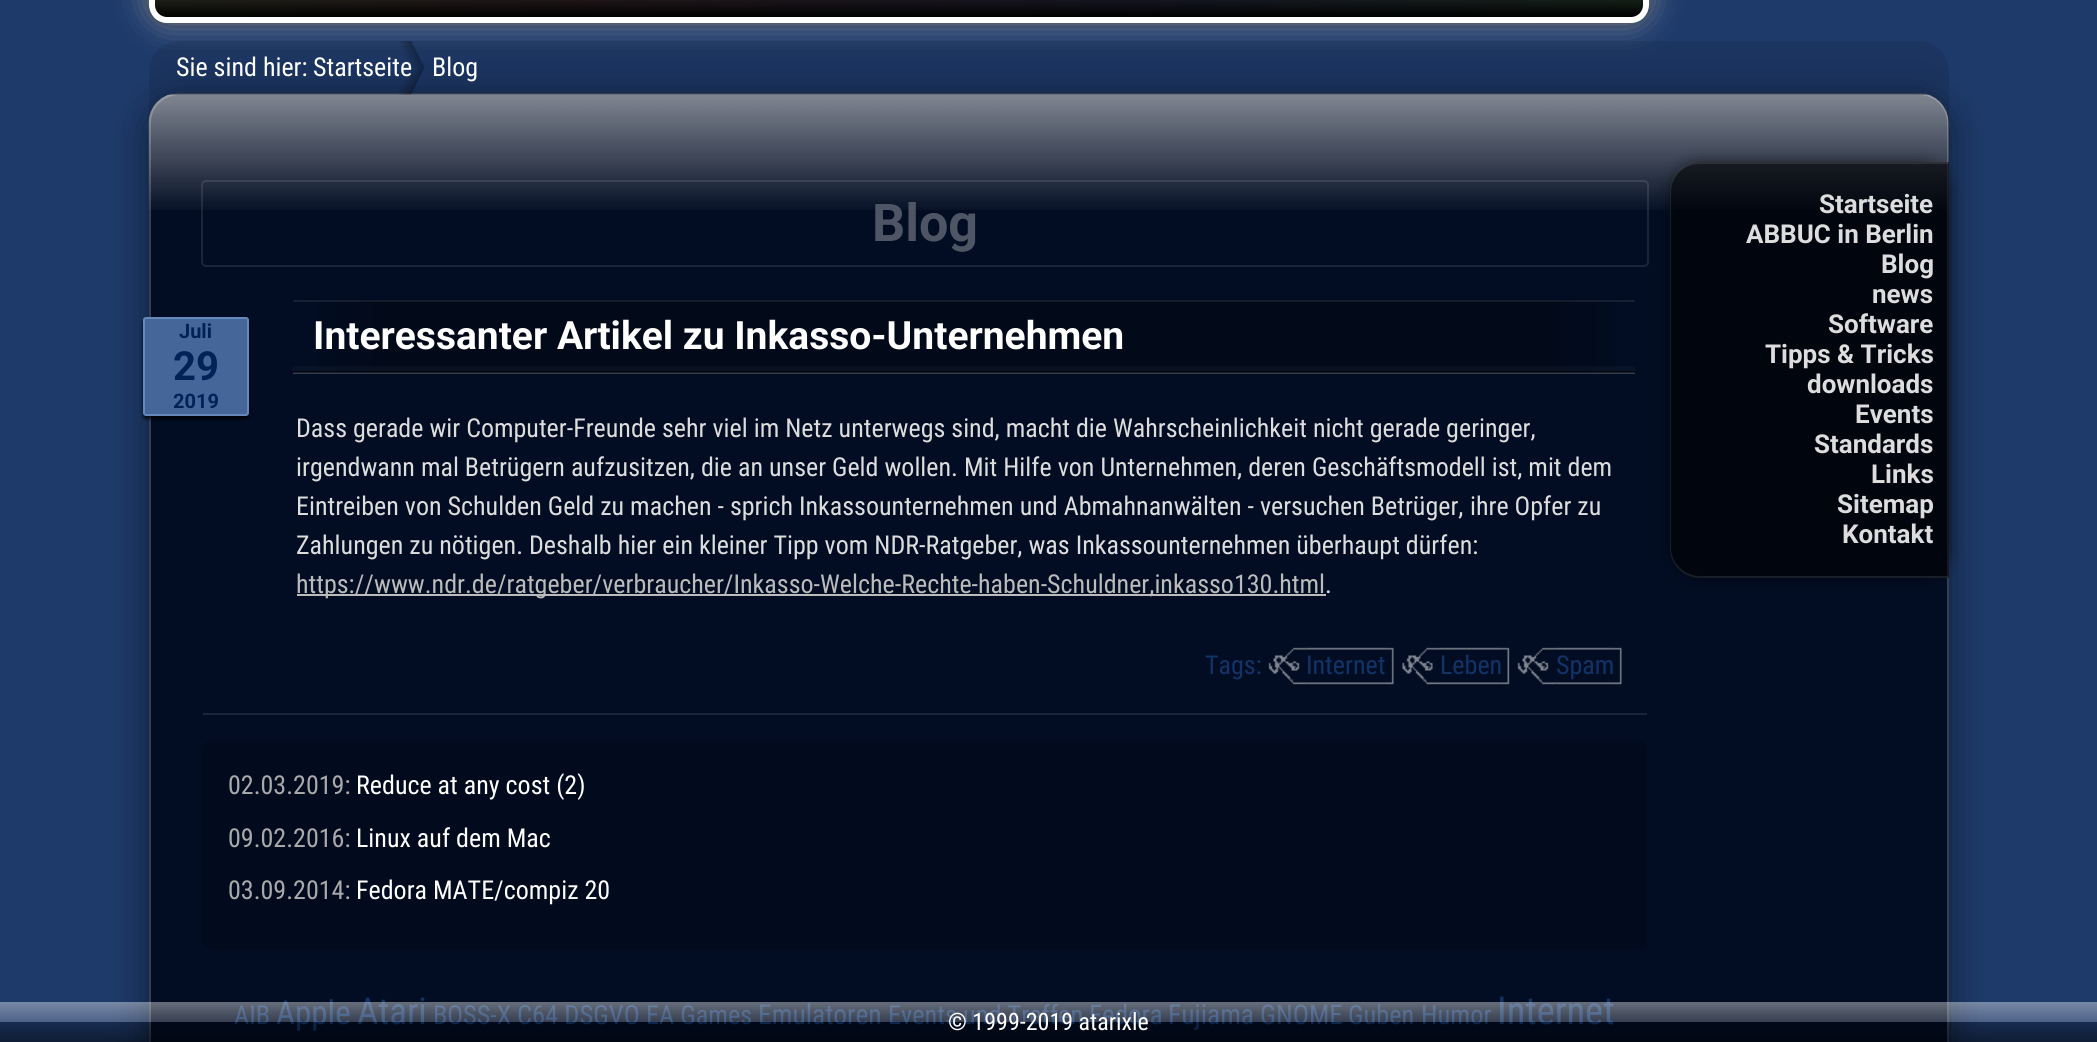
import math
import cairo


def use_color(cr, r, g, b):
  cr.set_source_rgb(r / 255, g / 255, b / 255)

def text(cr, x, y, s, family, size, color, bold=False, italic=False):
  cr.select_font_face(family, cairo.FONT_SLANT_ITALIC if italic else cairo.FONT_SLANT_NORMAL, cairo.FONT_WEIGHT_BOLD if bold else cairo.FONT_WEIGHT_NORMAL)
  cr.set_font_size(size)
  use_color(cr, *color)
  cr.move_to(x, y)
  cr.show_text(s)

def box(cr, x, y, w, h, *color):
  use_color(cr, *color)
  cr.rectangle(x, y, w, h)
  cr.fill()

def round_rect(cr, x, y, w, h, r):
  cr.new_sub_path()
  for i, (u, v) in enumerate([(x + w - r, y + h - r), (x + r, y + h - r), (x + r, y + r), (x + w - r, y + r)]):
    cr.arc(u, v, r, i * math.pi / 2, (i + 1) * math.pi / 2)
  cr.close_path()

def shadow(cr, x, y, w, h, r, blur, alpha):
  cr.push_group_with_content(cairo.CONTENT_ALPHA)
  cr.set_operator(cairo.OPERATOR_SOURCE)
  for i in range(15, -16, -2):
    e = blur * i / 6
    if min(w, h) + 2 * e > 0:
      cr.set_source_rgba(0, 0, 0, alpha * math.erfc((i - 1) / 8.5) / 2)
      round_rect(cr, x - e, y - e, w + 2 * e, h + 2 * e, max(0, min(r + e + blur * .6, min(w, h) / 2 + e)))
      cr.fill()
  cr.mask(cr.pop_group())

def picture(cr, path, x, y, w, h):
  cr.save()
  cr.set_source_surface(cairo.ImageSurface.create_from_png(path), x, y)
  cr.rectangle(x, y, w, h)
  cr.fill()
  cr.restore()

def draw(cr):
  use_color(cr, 30, 58, 106)
  cr.paint()
  cr.save()
  cr.set_fill_rule(cairo.FILL_RULE_EVEN_ODD)
  cr.new_path()
  cr.move_to(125, 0)
  cr.line_to(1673, 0)
  cr.line_to(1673, 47)
  cr.line_to(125, 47)
  cr.close_path()
  cr.move_to(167, -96)
  cr.line_to(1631, -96)
  cr.curve_to(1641, -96, 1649, -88, 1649, -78)
  cr.line_to(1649, 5)
  cr.curve_to(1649, 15, 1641, 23, 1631, 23)
  cr.line_to(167, 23)
  cr.curve_to(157, 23, 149, 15, 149, 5)
  cr.line_to(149, -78)
  cr.curve_to(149, -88, 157, -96, 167, -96)
  cr.close_path()
  cr.clip()
  use_color(cr, 0, 0, 0)
  shadow(cr, 149, -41, 1500, 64, 18, 7.5, 0.75)
  cr.restore()
  cr.save()
  cr.set_fill_rule(cairo.FILL_RULE_EVEN_ODD)
  cr.new_path()
  cr.move_to(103, 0)
  cr.line_to(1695, 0)
  cr.line_to(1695, 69)
  cr.line_to(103, 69)
  cr.close_path()
  cr.move_to(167, -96)
  cr.line_to(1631, -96)
  cr.curve_to(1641, -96, 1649, -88, 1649, -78)
  cr.line_to(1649, 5)
  cr.curve_to(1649, 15, 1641, 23, 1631, 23)
  cr.line_to(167, 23)
  cr.curve_to(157, 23, 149, 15, 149, 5)
  cr.line_to(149, -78)
  cr.curve_to(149, -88, 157, -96, 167, -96)
  cr.close_path()
  cr.clip()
  use_color(cr, 255, 255, 255)
  shadow(cr, 149, -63, 1500, 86, 18, 15, 0.5)
  cr.restore()
  cr.save()
  round_rect(cr, 149, -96, 1500, 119, 18)
  cr.clip()
  gradient = cairo.LinearGradient(155, -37, 1643, -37)
  gradient.add_color_stop_rgba(0, 1, 1, 0, 0.5)
  gradient.add_color_stop_rgba(0.29, 1, 0, 0, 0.5)
  gradient.add_color_stop_rgba(0.67, 0, 0, 1, 0.5)
  gradient.add_color_stop_rgba(1, 0, 1, 0, 0.5)
  cr.set_source(gradient)
  cr.rectangle(155, 0, 1488, 23)
  cr.fill()
  gradient = cairo.LinearGradient(899, -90, 899, 17)
  gradient.add_color_stop_rgba(0, 0.878, 0.878, 0.878, 0.85)
  gradient.add_color_stop_rgba(0.5, 0.502, 0.502, 0.502, 0.5)
  gradient.add_color_stop_rgba(0.5, 0.251, 0.251, 0.251, 0.75)
  gradient.add_color_stop_rgba(1, 0, 0, 0, 1)
  cr.set_source(gradient)
  cr.rectangle(149, 0, 1500, 17)
  cr.fill()
  cr.restore()
  round_rect(cr, 152, -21, 1494, 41, 15)
  use_color(cr, 255, 255, 255)
  cr.set_line_width(6)
  cr.stroke()
  cr.set_source_rgba(0, 0, 0, 0.1)
  cr.new_path()
  cr.move_to(179, 41)
  cr.line_to(1919, 41)
  cr.curve_to(1935.5, 41, 1949, 54.5, 1949, 71)
  cr.line_to(1949, 140)
  cr.line_to(149, 140)
  cr.line_to(149, 71)
  cr.curve_to(149, 54.5, 162.5, 41, 179, 41)
  cr.close_path()
  cr.fill()
  use_color(cr, 0, 0, 0)
  shadow(cr, 149, 101, 1800, 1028, 30, 19, 0.5)
  cr.save()
  cr.rectangle(396, 41, 30, 54)
  cr.clip()
  gradient = cairo.LinearGradient(411, 68, 422, 62)
  gradient.add_color_stop_rgba(0, 0, 0, 0, 0)
  gradient.add_color_stop_rgba(1, 0, 0, 0, 0.3)
  cr.set_source(gradient)
  cr.new_path()
  cr.move_to(397.5, 40.5)
  cr.line_to(411, 40.5)
  cr.line_to(424.5, 67.5)
  cr.line_to(411, 67.5)
  cr.close_path()
  cr.fill()
  cr.restore()
  use_color(cr, 2, 13, 35)
  round_rect(cr, 149, 93, 1800, 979, 30)
  cr.fill()
  picture(cr, "img_01.png", 148, 94, 1801, 116)
  round_rect(cr, 150, 94, 1798, 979, 29)
  cr.set_source_rgba(1, 1, 1, 0.2)
  cr.set_line_width(2)
  cr.stroke()
  gradient = cairo.LinearGradient(411, 67, 422, 73)
  gradient.add_color_stop_rgba(0, 0, 0, 0, 0)
  gradient.add_color_stop_rgba(1, 0, 0, 0, 0.3)
  cr.set_source(gradient)
  cr.new_path()
  cr.move_to(411, 67.5)
  cr.line_to(424.5, 67.5)
  cr.line_to(411, 94.5)
  cr.line_to(397.5, 94.5)
  cr.close_path()
  cr.fill()
  cr.save()
  cr.set_fill_rule(cairo.FILL_RULE_EVEN_ODD)
  cr.new_path()
  cr.move_to(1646, 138)
  cr.line_to(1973, 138)
  cr.line_to(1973, 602)
  cr.line_to(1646, 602)
  cr.close_path()
  cr.move_to(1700, 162)
  cr.line_to(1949, 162)
  cr.line_to(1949, 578)
  cr.line_to(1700, 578)
  cr.curve_to(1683.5, 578, 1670, 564.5, 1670, 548)
  cr.line_to(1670, 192)
  cr.curve_to(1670, 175.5, 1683.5, 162, 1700, 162)
  cr.close_path()
  cr.clip()
  use_color(cr, 0, 0, 0)
  shadow(cr, 1670, 162, 279, 416, 30, 7.5, 0.5)
  cr.restore()
  cr.set_source_rgba(0, 0, 0, 0.6)
  cr.new_path()
  cr.move_to(1700, 162)
  cr.line_to(1949, 162)
  cr.line_to(1949, 578)
  cr.line_to(1700, 578)
  cr.curve_to(1683.5, 578, 1670, 564.5, 1670, 548)
  cr.line_to(1670, 192)
  cr.curve_to(1670, 175.5, 1683.5, 162, 1700, 162)
  cr.close_path()
  cr.fill()
  cr.set_source_rgba(1, 1, 1, 0.1)
  cr.set_fill_rule(cairo.FILL_RULE_EVEN_ODD)
  cr.new_path()
  cr.move_to(1700, 162)
  cr.line_to(1948, 162)
  cr.line_to(1948, 578)
  cr.line_to(1700, 578)
  cr.curve_to(1683, 578, 1670, 564, 1670, 548)
  cr.line_to(1670, 192)
  cr.curve_to(1670, 175, 1683, 162, 1700, 162)
  cr.close_path()
  cr.move_to(1700, 164)
  cr.line_to(1948, 164)
  cr.line_to(1948, 576)
  cr.line_to(1700, 576)
  cr.curve_to(1684, 576, 1671, 563, 1671, 548)
  cr.line_to(1671, 192)
  cr.curve_to(1671, 176, 1684, 164, 1700, 164)
  cr.close_path()
  cr.fill()
  round_rect(cr, 202, 181, 1446, 85, 4)
  cr.stroke()
  box(cr, 203, 713, 1444, 2, 27, 37, 57)
  use_color(cr, 0, 0, 0)
  shadow(cr, 143, 320, 106, 99, 3, 1.5, 0.75)
  use_color(cr, 68, 102, 153)
  round_rect(cr, 144, 318, 104, 97, 2)
  cr.fill_preserve()
  use_color(cr, 102, 136, 187)
  cr.stroke()
  box(cr, 293, 373, 1342, 1, 53, 61, 79)
  box(cr, 293, 372, 1342, 1, 27, 31, 40)
  box(cr, 293, 299, 1342, 1, 2, 12, 32)
  gradient = cairo.LinearGradient(215, 336, 1557, 336)
  gradient.add_color_stop_rgba(0, 0.008, 0.039, 0.102, 1)
  gradient.add_color_stop_rgba(0.06, 0.008, 0.051, 0.137, 1)
  gradient.add_color_stop_rgba(0.12, 0.008, 0.039, 0.102, 1)
  cr.set_source(gradient)
  cr.rectangle(318, 302, 1239, 69)
  cr.fill()
  gradient = cairo.LinearGradient(215, 336, 1557, 336)
  gradient.add_color_stop_rgba(0, 0.004, 0.02, 0.051, 1)
  gradient.add_color_stop_rgba(0.06, 0.004, 0.027, 0.071, 1)
  gradient.add_color_stop_rgba(0.12, 0.004, 0.02, 0.051, 1)
  cr.set_source(gradient)
  cr.rectangle(293, 371, 1264, 1)
  cr.fill()
  gradient = cairo.LinearGradient(215, 336, 1557, 336)
  gradient.add_color_stop_rgba(0, 0.059, 0.086, 0.145, 1)
  gradient.add_color_stop_rgba(0.06, 0.059, 0.098, 0.18, 1)
  gradient.add_color_stop_rgba(0.12, 0.059, 0.086, 0.145, 1)
  cr.set_source(gradient)
  cr.rectangle(293, 300, 1264, 2)
  cr.fill()
  gradient = cairo.LinearGradient(1557, 336, 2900, 336)
  gradient.add_color_stop_rgba(0, 0.008, 0.039, 0.102, 1)
  gradient.add_color_stop_rgba(0.06, 0.008, 0.051, 0.137, 1)
  gradient.add_color_stop_rgba(0.12, 0.008, 0.039, 0.102, 1)
  cr.set_source(gradient)
  cr.rectangle(1557, 302, 58, 69)
  cr.fill()
  gradient = cairo.LinearGradient(1557, 336, 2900, 336)
  gradient.add_color_stop_rgba(0, 0.004, 0.02, 0.051, 1)
  gradient.add_color_stop_rgba(0.06, 0.004, 0.027, 0.071, 1)
  gradient.add_color_stop_rgba(0.12, 0.004, 0.02, 0.051, 1)
  cr.set_source(gradient)
  cr.rectangle(1557, 371, 78, 1)
  cr.fill()
  gradient = cairo.LinearGradient(1557, 336, 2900, 336)
  gradient.add_color_stop_rgba(0, 0.059, 0.086, 0.145, 1)
  gradient.add_color_stop_rgba(0.06, 0.059, 0.098, 0.18, 1)
  gradient.add_color_stop_rgba(0.12, 0.059, 0.086, 0.145, 1)
  cr.set_source(gradient)
  cr.rectangle(1557, 300, 78, 2)
  cr.fill()
  gradient = cairo.LinearGradient(964, 302, 964, 233)
  gradient.add_color_stop_rgba(0, 1, 1, 1, 0.03)
  gradient.add_color_stop_rgba(0.25, 1, 1, 1, 0)
  cr.set_source(gradient)
  cr.rectangle(293, 300, 1342, 2)
  cr.fill()
  gradient = cairo.LinearGradient(964, 371, 964, 302)
  gradient.add_color_stop_rgba(0, 1, 1, 1, 0.03)
  gradient.add_color_stop_rgba(0.25, 1, 1, 1, 0)
  cr.set_source(gradient)
  cr.rectangle(293, 366, 1342, 5)
  cr.fill()
  box(cr, 297, 594, 1029, 2, 187, 187, 187)
  picture(cr, "img_02.png", 1268, 647, 39, 38)
  picture(cr, "img_03.png", 1306, 647, 80, 38)
  picture(cr, "img_04.png", 1386, 647, 8, 38)
  picture(cr, "img_05.png", 1402, 647, 38, 38)
  picture(cr, "img_06.png", 1440, 647, 62, 38)
  picture(cr, "img_07.png", 1501, 647, 9, 38)
  picture(cr, "img_08.png", 1517, 647, 39, 38)
  picture(cr, "img_09.png", 1555, 647, 59, 38)
  picture(cr, "img_04.png", 1614, 647, 8, 38)
  use_color(cr, 2, 11, 30)
  round_rect(cr, 203, 740, 1444, 210, 8)
  cr.fill()
  text(cr, 176, 76, "Sie sind hier:", "Roboto Condensed", 26, (255, 255, 255))
  text(cr, 313, 76, "Startseite", "Roboto Condensed", 26, (255, 255, 255))
  text(cr, 432, 76, "Blog", "Roboto Condensed", 26, (255, 255, 255))
  text(cr, 1819, 213, "Startseite", "Roboto", 26, (221, 221, 221), bold=True)
  text(cr, 1746, 243, "ABBUC in Berlin", "Roboto", 26, (221, 221, 221), bold=True)
  text(cr, 1881, 273, "Blog", "Roboto", 26, (221, 221, 221), bold=True)
  text(cr, 1872, 303, "news", "Roboto", 26, (221, 221, 221), bold=True)
  text(cr, 1828, 333, "Software", "Roboto", 26, (221, 221, 221), bold=True)
  text(cr, 1765, 363, "Tipps & Tricks", "Roboto", 26, (221, 221, 221), bold=True)
  text(cr, 1807, 393, "downloads", "Roboto", 26, (221, 221, 221), bold=True)
  text(cr, 1855, 423, "Events", "Roboto", 26, (221, 221, 221), bold=True)
  text(cr, 1814, 453, "Standards", "Roboto", 26, (221, 221, 221), bold=True)
  text(cr, 1871, 483, "Links", "Roboto", 26, (221, 221, 221), bold=True)
  text(cr, 1837, 513, "Sitemap", "Roboto", 26, (221, 221, 221), bold=True)
  text(cr, 1842, 543, "Kontakt", "Roboto", 26, (221, 221, 221), bold=True)
  text(cr, 872, 241, "Blog", "Roboto", 52, (78, 86, 101), bold=True)
  text(cr, 179, 338, "Juli", "Roboto", 20, (0, 34, 85), bold=True)
  text(cr, 173, 380, "29", "Roboto", 40, (0, 34, 85), bold=True)
  text(cr, 173, 408, "2019", "Roboto", 20, (0, 34, 85), bold=True)
  text(cr, 313, 349, "Interessanter Artikel zu Inkasso-Unternehmen", "Roboto", 39, (255, 255, 255), bold=True)
  text(cr, 296, 437, "Dass gerade wir Computer-Freunde sehr viel im Netz unterwegs sind, macht die Wahrscheinlichkeit nicht gerade geringer,", "Roboto Condensed", 26, (221, 221, 221))
  text(cr, 296, 476, "irgendwann mal Betrügern aufzusitzen, die an unser Geld wollen. Mit Hilfe von Unternehmen, deren Geschäftsmodell ist, mit dem", "Roboto Condensed", 26, (221, 221, 221))
  text(cr, 296, 515, "Eintreiben von Schulden Geld zu machen - sprich Inkassounternehmen und Abmahnanwälten - versuchen Betrüger,", "Roboto Condensed", 26, (221, 221, 221))
  text(cr, 1470, 515, "ihre Opfer zu", "Roboto Condensed", 26, (221, 221, 221))
  text(cr, 296, 554, "Zahlungen zu nötigen. Deshalb hier ein kleiner Tipp vom NDR-Ratgeber, was Inkassounternehmen überhaupt dürfen:", "Roboto Condensed", 26, (221, 221, 221))
  text(cr, 296, 593, "https://www.ndr.de/ratgeber/verbraucher/Inkasso-Welche-Rechte-haben-Schuldner,inkasso130.html", "Roboto Condensed", 26, (187, 187, 187))
  text(cr, 1325, 593, ".", "Roboto Condensed", 26, (221, 221, 221))
  text(cr, 1205, 674, "Tags:", "Roboto Condensed", 26, (17, 51, 102))
  text(cr, 1306, 674, "Internet", "Roboto Condensed", 26, (17, 51, 102))
  text(cr, 1440, 674, "Leben", "Roboto Condensed", 26, (17, 51, 102))
  text(cr, 1556, 674, "Spam", "Roboto Condensed", 26, (17, 51, 102))
  text(cr, 228, 794, "02.03.2019:", "Roboto Condensed", 26, (170, 170, 170))
  text(cr, 356, 794, "Reduce at any cost (2)", "Roboto Condensed", 26, (255, 255, 255))
  text(cr, 228, 847, "09.02.2016:", "Roboto Condensed", 26, (170, 170, 170))
  text(cr, 356, 847, "Linux auf dem Mac", "Roboto Condensed", 26, (255, 255, 255))
  text(cr, 228, 899, "03.09.2014:", "Roboto Condensed", 26, (170, 170, 170))
  text(cr, 356, 899, "Fedora MATE/compiz 20", "Roboto Condensed", 26, (255, 255, 255))
  text(cr, 234, 1024, "AIB", "Roboto Condensed", 26.25, (17, 51, 102))
  text(cr, 276, 1024, "Apple", "Roboto Condensed", 33, (17, 51, 102))
  text(cr, 357, 1024, "Atari", "Roboto Condensed", 37, (17, 51, 102))
  text(cr, 433, 1024, "BOSS-X", "Roboto Condensed", 26.25, (17, 51, 102))
  text(cr, 517, 1024, "C64 DSGVO", "Roboto Condensed", 26.5, (17, 51, 102))
  text(cr, 646, 1024, "EA Games", "Roboto Condensed", 26.25, (17, 51, 102))
  text(cr, 758, 1024, "Emulatoren", "Roboto Condensed", 27.5, (17, 51, 102))
  text(cr, 888, 1024, "Events und Treffen", "Roboto Condensed", 26.25, (17, 51, 102))
  text(cr, 1089, 1024, "Fedora", "Roboto Condensed", 27, (17, 51, 102))
  text(cr, 1168, 1024, "Fujiama", "Roboto Condensed", 27.5, (17, 51, 102))
  text(cr, 1260, 1024, "GNOME", "Roboto Condensed", 27, (17, 51, 102))
  text(cr, 1348, 1024, "Guben", "Roboto Condensed", 26.25, (17, 51, 102))
  text(cr, 1421, 1024, "Humor", "Roboto Condensed", 26.5, (17, 51, 102))
  text(cr, 1497, 1024, "Internet", "Roboto Condensed", 38.5, (17, 51, 102))
  gradient = cairo.LinearGradient(1049, 1002, 1049, 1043)
  gradient.add_color_stop_rgba(0, 1, 1, 1, 0.4)
  gradient.add_color_stop_rgba(0.5, 1, 1, 1, 0.2)
  gradient.add_color_stop_rgba(0.5, 0, 0, 0, 0.25)
  gradient.add_color_stop_rgba(1, 0, 0, 0, 0.5)
  cr.set_source(gradient)
  cr.rectangle(0, 1002, 2097, 40)
  cr.fill()
  text(cr, 948, 1030, "© 1999-2019 atarixle", "Roboto Condensed", 24, (255, 255, 255))


surface = cairo.ImageSurface(cairo.FORMAT_RGB24, 2097, 1042)
cr = cairo.Context(surface)
options = cairo.FontOptions()
options.set_hint_metrics(cairo.HINT_METRICS_OFF)
options.set_hint_style(cairo.HINT_STYLE_NONE)
cr.set_font_options(options)
cr.set_miter_limit(4)
draw(cr)
surface.write_to_png("out.png")
